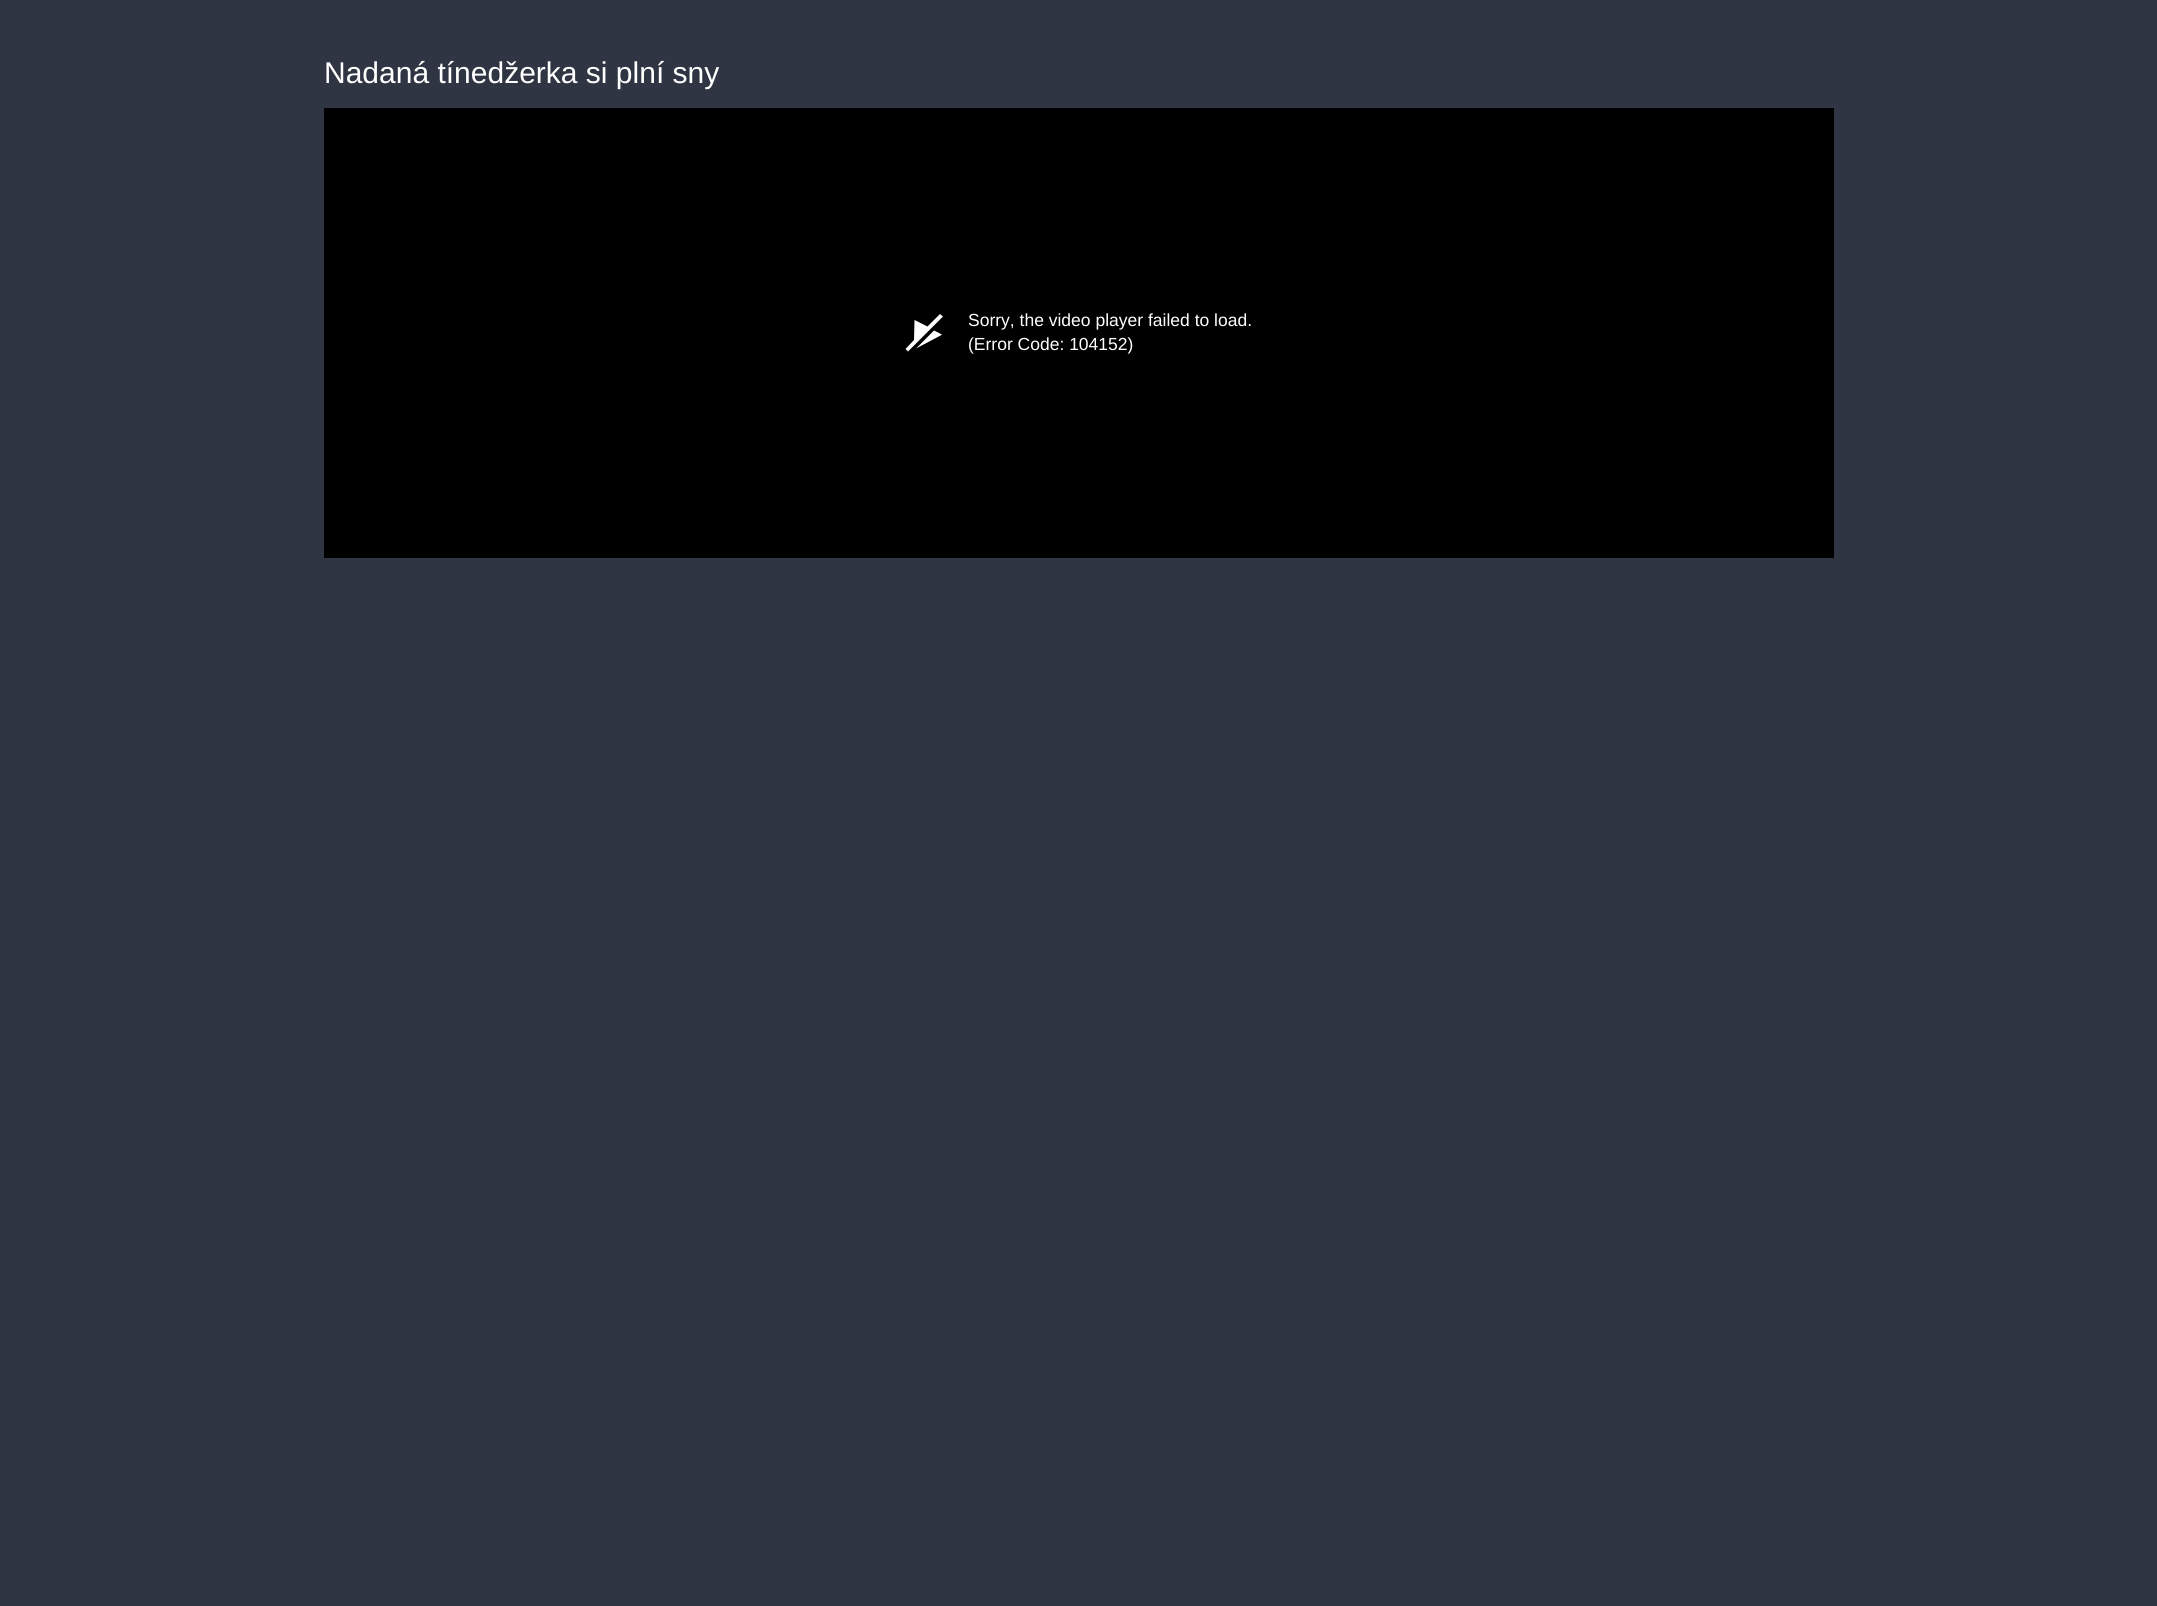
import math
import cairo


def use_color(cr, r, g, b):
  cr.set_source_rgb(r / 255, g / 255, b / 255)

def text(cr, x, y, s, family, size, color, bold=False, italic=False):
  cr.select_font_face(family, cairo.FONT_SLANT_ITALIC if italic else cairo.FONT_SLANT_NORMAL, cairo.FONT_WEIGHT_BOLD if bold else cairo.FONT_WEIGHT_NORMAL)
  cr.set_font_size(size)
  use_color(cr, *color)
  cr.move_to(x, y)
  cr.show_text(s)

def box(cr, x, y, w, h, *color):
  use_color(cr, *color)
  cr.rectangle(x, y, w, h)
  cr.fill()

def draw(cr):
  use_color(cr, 47, 53, 66)
  cr.paint()
  box(cr, 324, 108, 1510, 450, 0, 0, 0)
  use_color(cr, 255, 255, 255)
  cr.new_path()
  cr.move_to(941.5, 335)
  cr.line_to(916, 348.5)
  cr.line_to(934, 330.5)
  cr.curve_to(941, 334, 942.5, 334.5, 941.5, 335)
  cr.close_path()
  cr.move_to(940, 314)
  cr.line_to(927.5, 326.5)
  cr.line_to(914.5, 320)
  cr.line_to(914, 340)
  cr.line_to(905.5, 349)
  cr.line_to(908, 351.5)
  cr.line_to(943, 316.5)
  cr.close_path()
  cr.fill()
  text(cr, 324, 83, "Nadaná tínedžerka si plní sny", "Liberation Sans", 30, (255, 255, 255))
  text(cr, 968, 326, "Sorry, the video player failed to load.", "Liberation Sans", 17.5, (255, 255, 255))
  text(cr, 968, 350, "(Error Code: 104152)", "Liberation Sans", 17.5, (255, 255, 255))


surface = cairo.ImageSurface(cairo.FORMAT_RGB24, 2157, 1606)
cr = cairo.Context(surface)
options = cairo.FontOptions()
options.set_hint_metrics(cairo.HINT_METRICS_OFF)
options.set_hint_style(cairo.HINT_STYLE_NONE)
cr.set_font_options(options)
cr.set_miter_limit(4)
draw(cr)
surface.write_to_png("out.png")
